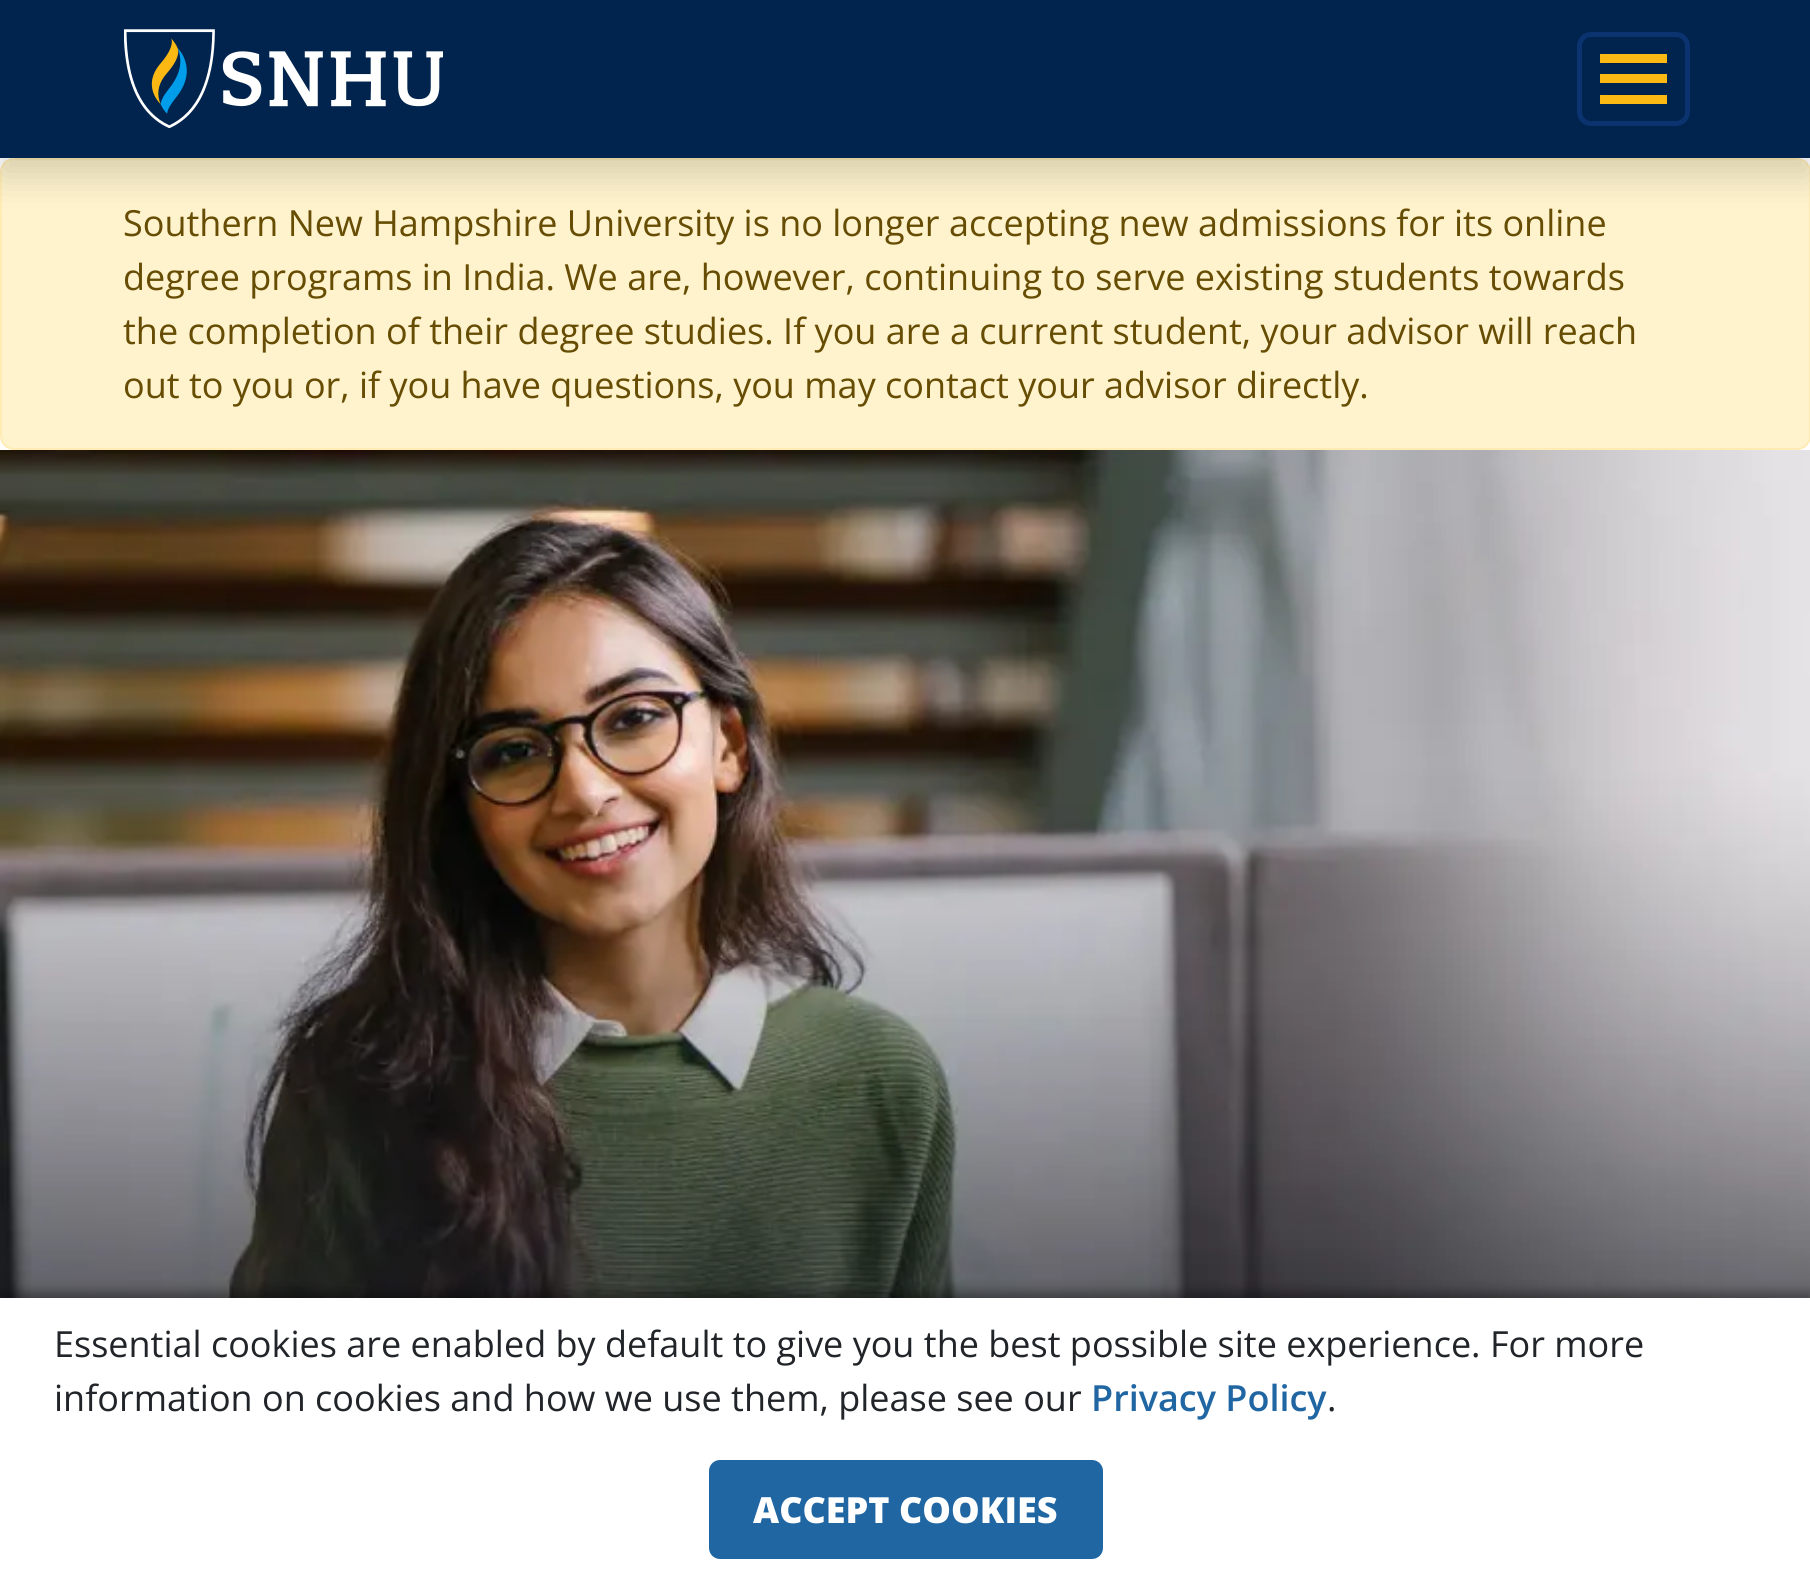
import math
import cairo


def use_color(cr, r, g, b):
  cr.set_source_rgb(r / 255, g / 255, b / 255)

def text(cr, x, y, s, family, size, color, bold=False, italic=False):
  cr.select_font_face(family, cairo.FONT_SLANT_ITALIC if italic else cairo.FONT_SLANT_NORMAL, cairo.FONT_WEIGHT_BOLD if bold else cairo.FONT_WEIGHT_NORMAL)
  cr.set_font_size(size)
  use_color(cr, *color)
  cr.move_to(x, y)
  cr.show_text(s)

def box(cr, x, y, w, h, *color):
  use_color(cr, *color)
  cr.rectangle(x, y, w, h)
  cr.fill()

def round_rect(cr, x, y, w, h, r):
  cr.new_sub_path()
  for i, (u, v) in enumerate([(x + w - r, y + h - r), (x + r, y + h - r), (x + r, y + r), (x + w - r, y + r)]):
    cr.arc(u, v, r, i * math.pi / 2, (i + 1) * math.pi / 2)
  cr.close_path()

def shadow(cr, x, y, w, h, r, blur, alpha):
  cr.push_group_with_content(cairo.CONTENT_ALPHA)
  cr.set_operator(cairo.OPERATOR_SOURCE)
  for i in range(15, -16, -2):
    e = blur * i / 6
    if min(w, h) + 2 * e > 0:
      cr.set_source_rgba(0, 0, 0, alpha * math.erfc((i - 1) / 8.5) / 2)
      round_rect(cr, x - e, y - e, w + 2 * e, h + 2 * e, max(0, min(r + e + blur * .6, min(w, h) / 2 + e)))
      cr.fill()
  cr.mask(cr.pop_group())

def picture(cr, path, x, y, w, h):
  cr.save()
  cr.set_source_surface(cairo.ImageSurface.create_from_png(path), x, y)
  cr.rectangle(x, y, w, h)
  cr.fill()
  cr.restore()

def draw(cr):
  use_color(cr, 255, 255, 255)
  cr.paint()
  use_color(cr, 255, 243, 205)
  round_rect(cr, 1, 159, 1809, 290, 13)
  cr.fill_preserve()
  use_color(cr, 255, 236, 181)
  cr.stroke()
  use_color(cr, 0, 0, 0)
  shadow(cr, 0, 18, 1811, 158, 0, 18, 0.15)
  box(cr, 0, 0, 1810, 158, 0, 36, 78)
  picture(cr, "img_01.png", 124, 29, 319, 99)
  round_rect(cr, 1579.5, 34.5, 108, 89, 11.5)
  use_color(cr, 10, 51, 112)
  cr.set_line_width(5)
  cr.stroke()
  cr.new_path()
  cr.move_to(1609, 61)
  cr.line_to(1658, 61)
  cr.move_to(1609, 79)
  cr.line_to(1658, 79)
  cr.move_to(1609, 97)
  cr.line_to(1658, 97)
  use_color(cr, 0, 16, 35)
  cr.set_line_width(4.5)
  cr.set_line_cap(cairo.LINE_CAP_ROUND)
  cr.stroke()
  box(cr, 1600, 54, 67, 9, 253, 185, 19)
  box(cr, 1600, 74, 67, 9, 253, 185, 19)
  box(cr, 1600, 95, 67, 9, 253, 185, 19)
  picture(cr, "img_02.png", 0, 450, 1810, 848)
  use_color(cr, 0, 0, 0)
  shadow(cr, 0, 1292, 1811, 279, 0, 5.5, 0.36)
  box(cr, 0, 1298, 1810, 278, 255, 255, 255)
  use_color(cr, 32, 102, 162)
  round_rect(cr, 709, 1460, 394, 99, 11)
  cr.fill()
  text(cr, 123, 236, "Southern New Hampshire University is no longer accepting new admissions for its online", "Open Sans", 36, (102, 77, 3))
  text(cr, 123, 290, "degree programs in India. We are, however, continuing to serve existing students towards", "Open Sans", 36, (102, 77, 3))
  text(cr, 123, 344, "the completion of their degree studies. If you are a current student, your advisor will reach", "Open Sans", 36, (102, 77, 3))
  text(cr, 123, 398, "out to you or, if you have questions, you may contact your advisor directly.", "Open Sans", 36, (102, 77, 3))
  text(cr, 54, 1357, "Essential cookies are enabled by default to give you the best possible site experience. For more", "Open Sans", 36, (33, 37, 41))
  text(cr, 54, 1411, "information on cookies and how we use them, please see our", "Open Sans", 36, (33, 37, 41))
  text(cr, 1091, 1411, "Privacy Policy", "Open Sans SemiBold", 36, (32, 102, 162))
  text(cr, 1327, 1411, ".", "Open Sans", 36, (33, 37, 41))
  text(cr, 753, 1523, "ACCEPT COOKIES", "Open Sans ExtraBold", 36, (255, 255, 255))


surface = cairo.ImageSurface(cairo.FORMAT_RGB24, 1810, 1576)
cr = cairo.Context(surface)
options = cairo.FontOptions()
options.set_hint_metrics(cairo.HINT_METRICS_OFF)
options.set_hint_style(cairo.HINT_STYLE_NONE)
cr.set_font_options(options)
cr.set_miter_limit(4)
draw(cr)
surface.write_to_png("out.png")
